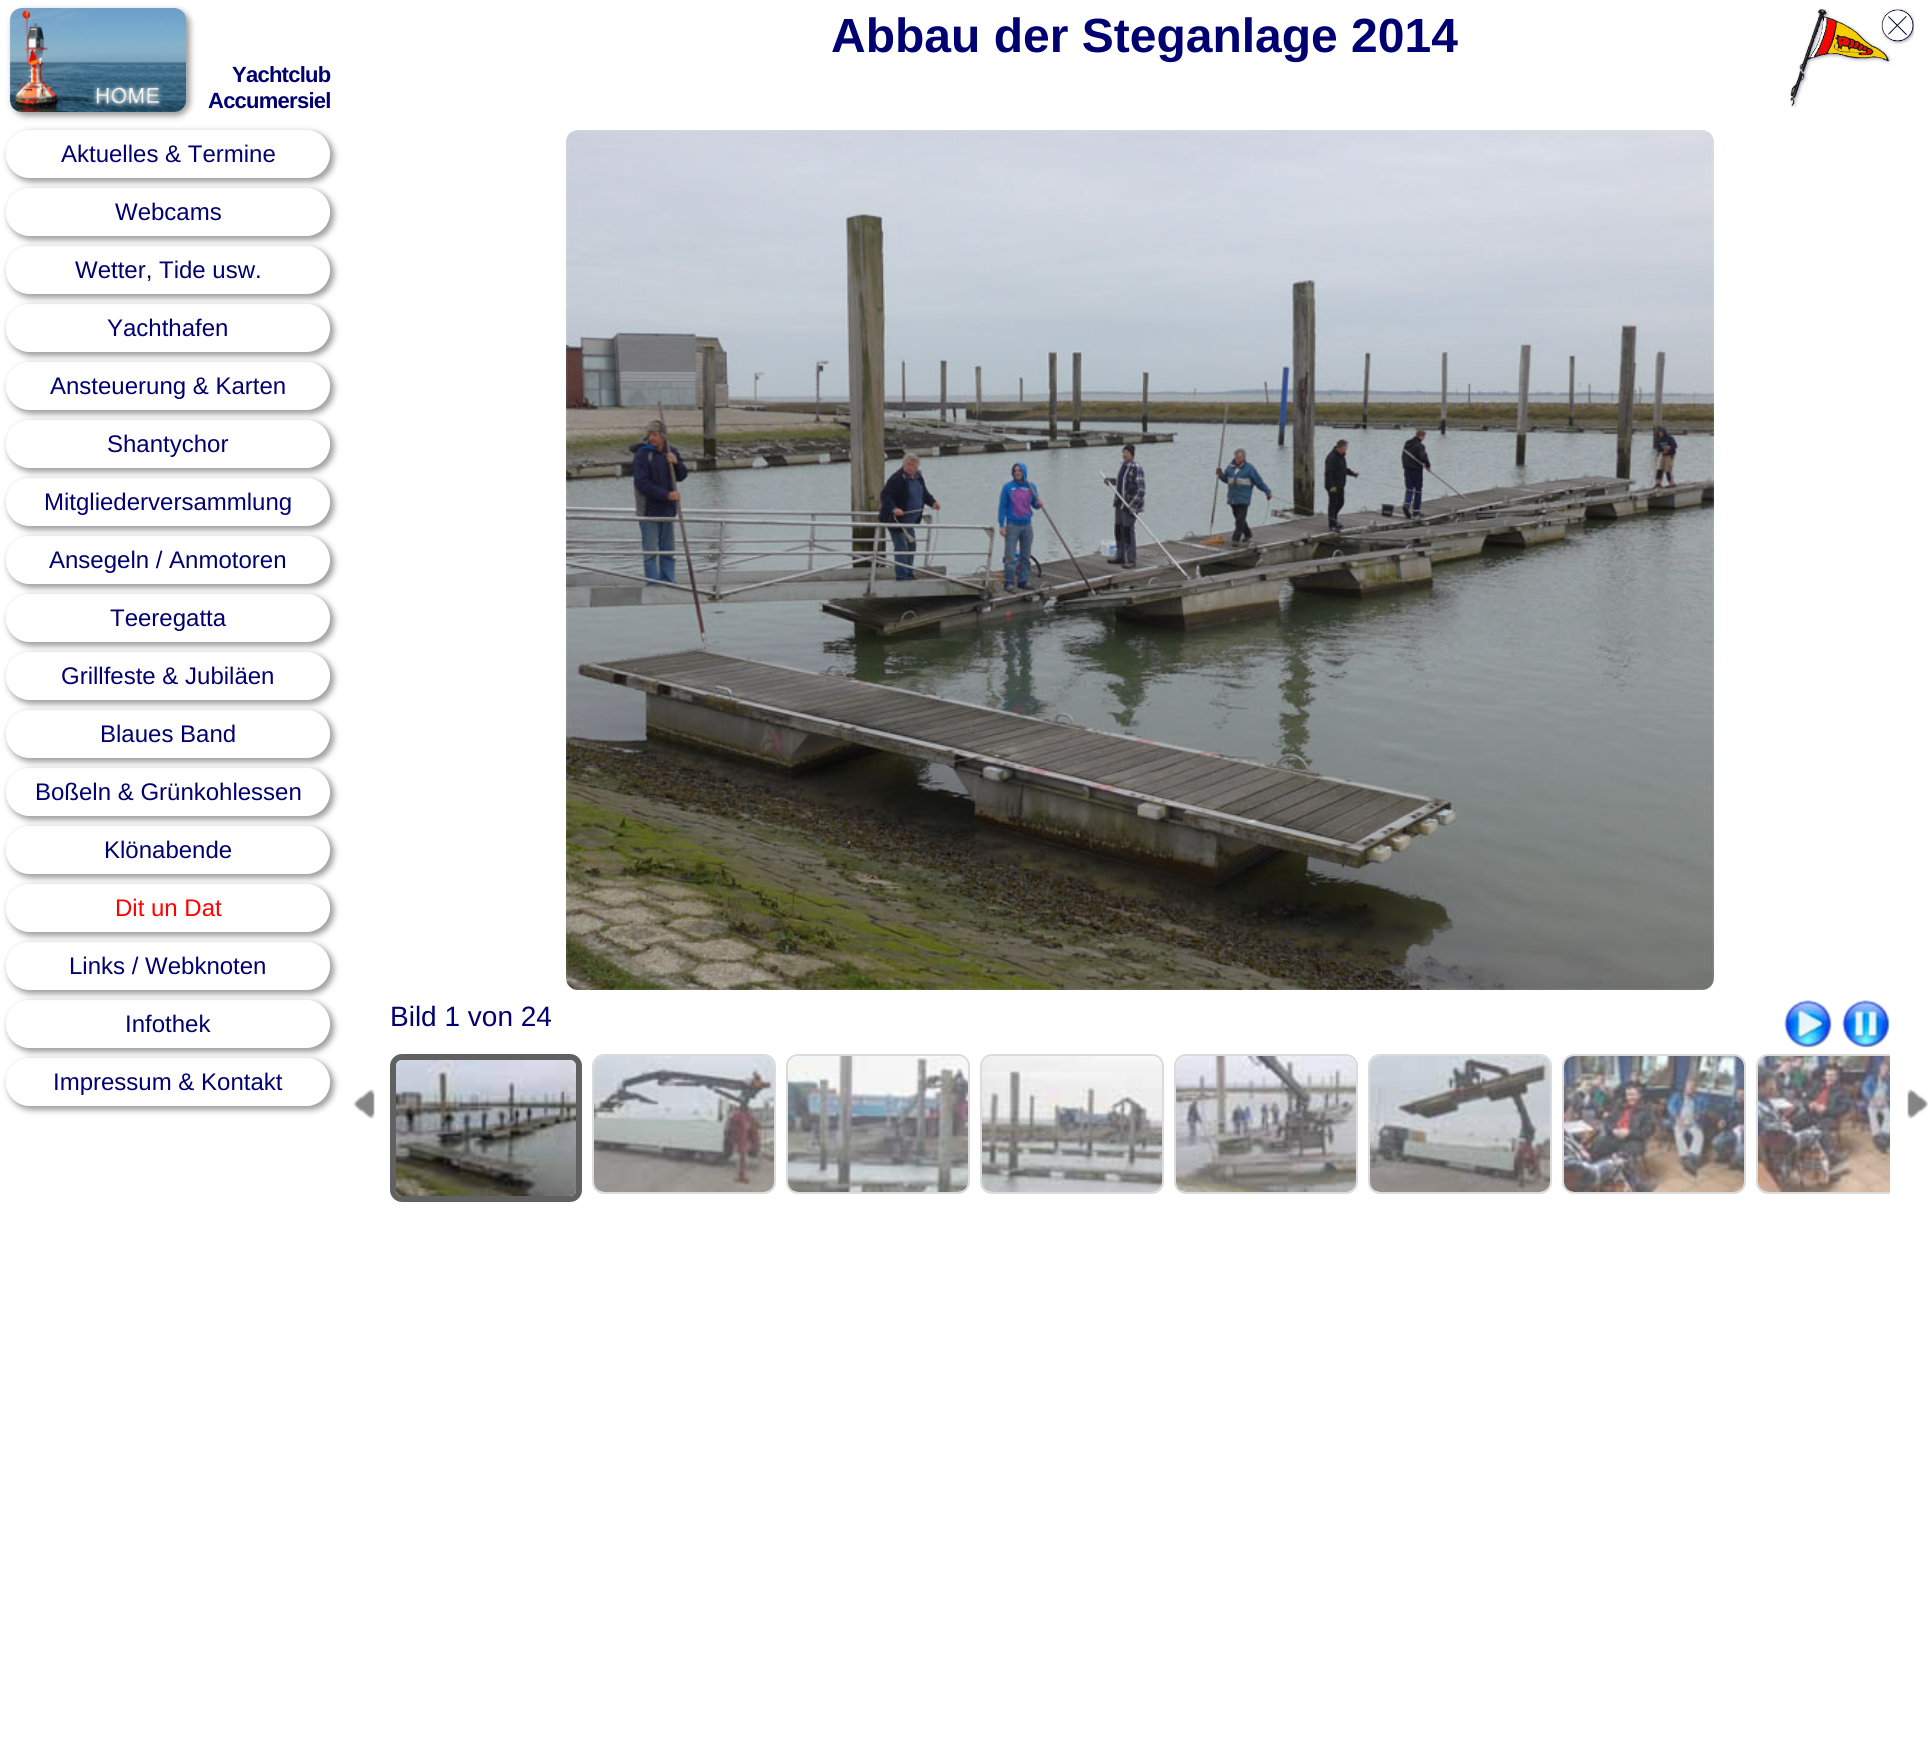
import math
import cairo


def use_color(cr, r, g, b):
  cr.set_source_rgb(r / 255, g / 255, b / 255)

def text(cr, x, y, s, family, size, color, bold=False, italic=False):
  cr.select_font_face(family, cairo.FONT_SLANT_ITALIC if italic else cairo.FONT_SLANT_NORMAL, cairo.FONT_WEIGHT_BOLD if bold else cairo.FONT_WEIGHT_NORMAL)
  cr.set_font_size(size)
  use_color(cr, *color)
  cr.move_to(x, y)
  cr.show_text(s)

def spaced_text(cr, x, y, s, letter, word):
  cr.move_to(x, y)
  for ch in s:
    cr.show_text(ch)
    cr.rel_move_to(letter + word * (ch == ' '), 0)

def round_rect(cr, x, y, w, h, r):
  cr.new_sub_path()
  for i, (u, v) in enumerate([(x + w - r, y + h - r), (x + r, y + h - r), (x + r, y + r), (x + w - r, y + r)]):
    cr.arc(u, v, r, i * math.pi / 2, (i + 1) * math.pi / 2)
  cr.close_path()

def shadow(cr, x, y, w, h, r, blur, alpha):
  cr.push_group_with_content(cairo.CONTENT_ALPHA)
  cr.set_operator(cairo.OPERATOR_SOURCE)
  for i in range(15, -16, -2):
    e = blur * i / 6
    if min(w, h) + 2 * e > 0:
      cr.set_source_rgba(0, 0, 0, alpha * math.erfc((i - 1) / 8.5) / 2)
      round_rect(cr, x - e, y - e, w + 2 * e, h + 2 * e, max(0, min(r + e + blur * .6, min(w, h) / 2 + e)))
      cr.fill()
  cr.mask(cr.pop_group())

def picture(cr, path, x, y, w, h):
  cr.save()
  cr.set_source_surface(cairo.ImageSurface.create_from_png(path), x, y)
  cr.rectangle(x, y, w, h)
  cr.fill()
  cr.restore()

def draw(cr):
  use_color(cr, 255, 255, 255)
  cr.paint()
  picture(cr, "img_01.png", 1790, 8, 124, 100)
  use_color(cr, 158, 158, 160)
  shadow(cr, 12, 10, 178, 106, 14, 3, 1)
  picture(cr, "img_02.png", 10, 8, 176, 104)
  cr.save()
  cr.set_fill_rule(cairo.FILL_RULE_EVEN_ODD)
  cr.new_path()
  cr.move_to(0, 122)
  cr.line_to(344, 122)
  cr.line_to(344, 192)
  cr.line_to(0, 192)
  cr.close_path()
  cr.move_to(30, 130)
  cr.line_to(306, 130)
  cr.curve_to(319.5, 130, 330, 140.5, 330, 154)
  cr.curve_to(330, 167.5, 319.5, 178, 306, 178)
  cr.line_to(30, 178)
  cr.curve_to(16.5, 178, 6, 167.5, 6, 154)
  cr.curve_to(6, 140.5, 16.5, 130, 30, 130)
  cr.close_path()
  cr.clip()
  shadow(cr, 8, 132, 326, 50, 25, 3, 1)
  cr.restore()
  cr.save()
  cr.set_fill_rule(cairo.FILL_RULE_EVEN_ODD)
  cr.new_path()
  cr.move_to(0, 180)
  cr.line_to(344, 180)
  cr.line_to(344, 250)
  cr.line_to(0, 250)
  cr.close_path()
  cr.move_to(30, 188)
  cr.line_to(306, 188)
  cr.curve_to(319.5, 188, 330, 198.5, 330, 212)
  cr.curve_to(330, 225.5, 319.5, 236, 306, 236)
  cr.line_to(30, 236)
  cr.curve_to(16.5, 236, 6, 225.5, 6, 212)
  cr.curve_to(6, 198.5, 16.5, 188, 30, 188)
  cr.close_path()
  cr.clip()
  shadow(cr, 8, 190, 326, 50, 25, 3, 1)
  cr.restore()
  cr.save()
  cr.set_fill_rule(cairo.FILL_RULE_EVEN_ODD)
  cr.new_path()
  cr.move_to(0, 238)
  cr.line_to(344, 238)
  cr.line_to(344, 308)
  cr.line_to(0, 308)
  cr.close_path()
  cr.move_to(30, 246)
  cr.line_to(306, 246)
  cr.curve_to(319.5, 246, 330, 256.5, 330, 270)
  cr.curve_to(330, 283.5, 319.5, 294, 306, 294)
  cr.line_to(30, 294)
  cr.curve_to(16.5, 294, 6, 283.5, 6, 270)
  cr.curve_to(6, 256.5, 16.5, 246, 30, 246)
  cr.close_path()
  cr.clip()
  shadow(cr, 8, 248, 326, 50, 25, 3, 1)
  cr.restore()
  cr.save()
  cr.set_fill_rule(cairo.FILL_RULE_EVEN_ODD)
  cr.new_path()
  cr.move_to(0, 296)
  cr.line_to(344, 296)
  cr.line_to(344, 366)
  cr.line_to(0, 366)
  cr.close_path()
  cr.move_to(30, 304)
  cr.line_to(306, 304)
  cr.curve_to(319.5, 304, 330, 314.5, 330, 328)
  cr.curve_to(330, 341.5, 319.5, 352, 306, 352)
  cr.line_to(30, 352)
  cr.curve_to(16.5, 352, 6, 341.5, 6, 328)
  cr.curve_to(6, 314.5, 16.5, 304, 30, 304)
  cr.close_path()
  cr.clip()
  shadow(cr, 8, 306, 326, 50, 25, 3, 1)
  cr.restore()
  cr.save()
  cr.set_fill_rule(cairo.FILL_RULE_EVEN_ODD)
  cr.new_path()
  cr.move_to(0, 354)
  cr.line_to(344, 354)
  cr.line_to(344, 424)
  cr.line_to(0, 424)
  cr.close_path()
  cr.move_to(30, 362)
  cr.line_to(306, 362)
  cr.curve_to(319.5, 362, 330, 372.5, 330, 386)
  cr.curve_to(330, 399.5, 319.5, 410, 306, 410)
  cr.line_to(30, 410)
  cr.curve_to(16.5, 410, 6, 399.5, 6, 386)
  cr.curve_to(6, 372.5, 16.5, 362, 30, 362)
  cr.close_path()
  cr.clip()
  shadow(cr, 8, 364, 326, 50, 25, 3, 1)
  cr.restore()
  cr.save()
  cr.set_fill_rule(cairo.FILL_RULE_EVEN_ODD)
  cr.new_path()
  cr.move_to(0, 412)
  cr.line_to(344, 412)
  cr.line_to(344, 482)
  cr.line_to(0, 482)
  cr.close_path()
  cr.move_to(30, 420)
  cr.line_to(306, 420)
  cr.curve_to(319.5, 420, 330, 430.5, 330, 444)
  cr.curve_to(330, 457.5, 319.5, 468, 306, 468)
  cr.line_to(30, 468)
  cr.curve_to(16.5, 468, 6, 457.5, 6, 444)
  cr.curve_to(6, 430.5, 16.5, 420, 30, 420)
  cr.close_path()
  cr.clip()
  shadow(cr, 8, 422, 326, 50, 25, 3, 1)
  cr.restore()
  cr.save()
  cr.set_fill_rule(cairo.FILL_RULE_EVEN_ODD)
  cr.new_path()
  cr.move_to(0, 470)
  cr.line_to(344, 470)
  cr.line_to(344, 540)
  cr.line_to(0, 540)
  cr.close_path()
  cr.move_to(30, 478)
  cr.line_to(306, 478)
  cr.curve_to(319.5, 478, 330, 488.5, 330, 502)
  cr.curve_to(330, 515.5, 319.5, 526, 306, 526)
  cr.line_to(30, 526)
  cr.curve_to(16.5, 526, 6, 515.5, 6, 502)
  cr.curve_to(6, 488.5, 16.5, 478, 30, 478)
  cr.close_path()
  cr.clip()
  shadow(cr, 8, 480, 326, 50, 25, 3, 1)
  cr.restore()
  cr.save()
  cr.set_fill_rule(cairo.FILL_RULE_EVEN_ODD)
  cr.new_path()
  cr.move_to(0, 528)
  cr.line_to(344, 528)
  cr.line_to(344, 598)
  cr.line_to(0, 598)
  cr.close_path()
  cr.move_to(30, 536)
  cr.line_to(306, 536)
  cr.curve_to(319.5, 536, 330, 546.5, 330, 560)
  cr.curve_to(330, 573.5, 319.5, 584, 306, 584)
  cr.line_to(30, 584)
  cr.curve_to(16.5, 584, 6, 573.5, 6, 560)
  cr.curve_to(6, 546.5, 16.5, 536, 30, 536)
  cr.close_path()
  cr.clip()
  shadow(cr, 8, 538, 326, 50, 25, 3, 1)
  cr.restore()
  cr.save()
  cr.set_fill_rule(cairo.FILL_RULE_EVEN_ODD)
  cr.new_path()
  cr.move_to(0, 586)
  cr.line_to(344, 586)
  cr.line_to(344, 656)
  cr.line_to(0, 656)
  cr.close_path()
  cr.move_to(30, 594)
  cr.line_to(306, 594)
  cr.curve_to(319.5, 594, 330, 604.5, 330, 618)
  cr.curve_to(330, 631.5, 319.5, 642, 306, 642)
  cr.line_to(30, 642)
  cr.curve_to(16.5, 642, 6, 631.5, 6, 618)
  cr.curve_to(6, 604.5, 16.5, 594, 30, 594)
  cr.close_path()
  cr.clip()
  shadow(cr, 8, 596, 326, 50, 25, 3, 1)
  cr.restore()
  cr.save()
  cr.set_fill_rule(cairo.FILL_RULE_EVEN_ODD)
  cr.new_path()
  cr.move_to(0, 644)
  cr.line_to(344, 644)
  cr.line_to(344, 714)
  cr.line_to(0, 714)
  cr.close_path()
  cr.move_to(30, 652)
  cr.line_to(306, 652)
  cr.curve_to(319.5, 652, 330, 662.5, 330, 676)
  cr.curve_to(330, 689.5, 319.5, 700, 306, 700)
  cr.line_to(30, 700)
  cr.curve_to(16.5, 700, 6, 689.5, 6, 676)
  cr.curve_to(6, 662.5, 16.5, 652, 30, 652)
  cr.close_path()
  cr.clip()
  shadow(cr, 8, 654, 326, 50, 25, 3, 1)
  cr.restore()
  cr.save()
  cr.set_fill_rule(cairo.FILL_RULE_EVEN_ODD)
  cr.new_path()
  cr.move_to(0, 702)
  cr.line_to(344, 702)
  cr.line_to(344, 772)
  cr.line_to(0, 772)
  cr.close_path()
  cr.move_to(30, 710)
  cr.line_to(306, 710)
  cr.curve_to(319.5, 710, 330, 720.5, 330, 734)
  cr.curve_to(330, 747.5, 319.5, 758, 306, 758)
  cr.line_to(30, 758)
  cr.curve_to(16.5, 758, 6, 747.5, 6, 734)
  cr.curve_to(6, 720.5, 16.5, 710, 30, 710)
  cr.close_path()
  cr.clip()
  shadow(cr, 8, 712, 326, 50, 25, 3, 1)
  cr.restore()
  cr.save()
  cr.set_fill_rule(cairo.FILL_RULE_EVEN_ODD)
  cr.new_path()
  cr.move_to(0, 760)
  cr.line_to(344, 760)
  cr.line_to(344, 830)
  cr.line_to(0, 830)
  cr.close_path()
  cr.move_to(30, 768)
  cr.line_to(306, 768)
  cr.curve_to(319.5, 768, 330, 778.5, 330, 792)
  cr.curve_to(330, 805.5, 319.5, 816, 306, 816)
  cr.line_to(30, 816)
  cr.curve_to(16.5, 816, 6, 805.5, 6, 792)
  cr.curve_to(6, 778.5, 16.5, 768, 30, 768)
  cr.close_path()
  cr.clip()
  shadow(cr, 8, 770, 326, 50, 25, 3, 1)
  cr.restore()
  cr.save()
  cr.set_fill_rule(cairo.FILL_RULE_EVEN_ODD)
  cr.new_path()
  cr.move_to(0, 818)
  cr.line_to(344, 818)
  cr.line_to(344, 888)
  cr.line_to(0, 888)
  cr.close_path()
  cr.move_to(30, 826)
  cr.line_to(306, 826)
  cr.curve_to(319.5, 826, 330, 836.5, 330, 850)
  cr.curve_to(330, 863.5, 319.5, 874, 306, 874)
  cr.line_to(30, 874)
  cr.curve_to(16.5, 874, 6, 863.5, 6, 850)
  cr.curve_to(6, 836.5, 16.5, 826, 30, 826)
  cr.close_path()
  cr.clip()
  shadow(cr, 8, 828, 326, 50, 25, 3, 1)
  cr.restore()
  cr.save()
  cr.set_fill_rule(cairo.FILL_RULE_EVEN_ODD)
  cr.new_path()
  cr.move_to(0, 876)
  cr.line_to(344, 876)
  cr.line_to(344, 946)
  cr.line_to(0, 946)
  cr.close_path()
  cr.move_to(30, 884)
  cr.line_to(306, 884)
  cr.curve_to(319.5, 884, 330, 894.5, 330, 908)
  cr.curve_to(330, 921.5, 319.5, 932, 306, 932)
  cr.line_to(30, 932)
  cr.curve_to(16.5, 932, 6, 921.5, 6, 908)
  cr.curve_to(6, 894.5, 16.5, 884, 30, 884)
  cr.close_path()
  cr.clip()
  shadow(cr, 8, 886, 326, 50, 25, 3, 1)
  cr.restore()
  cr.save()
  cr.set_fill_rule(cairo.FILL_RULE_EVEN_ODD)
  cr.new_path()
  cr.move_to(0, 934)
  cr.line_to(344, 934)
  cr.line_to(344, 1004)
  cr.line_to(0, 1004)
  cr.close_path()
  cr.move_to(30, 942)
  cr.line_to(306, 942)
  cr.curve_to(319.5, 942, 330, 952.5, 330, 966)
  cr.curve_to(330, 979.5, 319.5, 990, 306, 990)
  cr.line_to(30, 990)
  cr.curve_to(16.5, 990, 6, 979.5, 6, 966)
  cr.curve_to(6, 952.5, 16.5, 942, 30, 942)
  cr.close_path()
  cr.clip()
  shadow(cr, 8, 944, 326, 50, 25, 3, 1)
  cr.restore()
  cr.save()
  cr.set_fill_rule(cairo.FILL_RULE_EVEN_ODD)
  cr.new_path()
  cr.move_to(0, 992)
  cr.line_to(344, 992)
  cr.line_to(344, 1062)
  cr.line_to(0, 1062)
  cr.close_path()
  cr.move_to(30, 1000)
  cr.line_to(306, 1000)
  cr.curve_to(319.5, 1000, 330, 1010.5, 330, 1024)
  cr.curve_to(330, 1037.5, 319.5, 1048, 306, 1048)
  cr.line_to(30, 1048)
  cr.curve_to(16.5, 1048, 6, 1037.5, 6, 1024)
  cr.curve_to(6, 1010.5, 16.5, 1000, 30, 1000)
  cr.close_path()
  cr.clip()
  shadow(cr, 8, 1002, 326, 50, 25, 3, 1)
  cr.restore()
  cr.save()
  cr.set_fill_rule(cairo.FILL_RULE_EVEN_ODD)
  cr.new_path()
  cr.move_to(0, 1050)
  cr.line_to(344, 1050)
  cr.line_to(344, 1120)
  cr.line_to(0, 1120)
  cr.close_path()
  cr.move_to(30, 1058)
  cr.line_to(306, 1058)
  cr.curve_to(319.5, 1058, 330, 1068.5, 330, 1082)
  cr.curve_to(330, 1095.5, 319.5, 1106, 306, 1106)
  cr.line_to(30, 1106)
  cr.curve_to(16.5, 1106, 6, 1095.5, 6, 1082)
  cr.curve_to(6, 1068.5, 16.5, 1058, 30, 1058)
  cr.close_path()
  cr.clip()
  shadow(cr, 8, 1060, 326, 50, 25, 3, 1)
  cr.restore()
  picture(cr, "img_03.png", 566, 130, 1148, 860)
  picture(cr, "img_04.png", 1784, 1000, 48, 48)
  picture(cr, "img_05.png", 1842, 1000, 48, 48)
  picture(cr, "img_06.png", 353, 1089, 22, 30)
  round_rect(cr, 393, 1057, 186, 142, 9)
  use_color(cr, 97, 97, 97)
  cr.set_line_width(6)
  cr.stroke()
  picture(cr, "img_07.png", 396, 1060, 180, 136)
  round_rect(cr, 593, 1055, 182, 138, 11)
  use_color(cr, 219, 219, 219)
  cr.set_line_width(2)
  cr.stroke()
  picture(cr, "img_08.png", 594, 1056, 180, 136)
  round_rect(cr, 787, 1055, 182, 138, 11)
  cr.stroke()
  picture(cr, "img_09.png", 788, 1056, 180, 136)
  round_rect(cr, 981, 1055, 182, 138, 11)
  cr.stroke()
  picture(cr, "img_10.png", 982, 1056, 180, 136)
  round_rect(cr, 1175, 1055, 182, 138, 11)
  cr.stroke()
  picture(cr, "img_11.png", 1176, 1056, 180, 136)
  round_rect(cr, 1369, 1055, 182, 138, 11)
  cr.stroke()
  picture(cr, "img_12.png", 1370, 1056, 180, 136)
  round_rect(cr, 1563, 1055, 182, 138, 11)
  cr.stroke()
  picture(cr, "img_13.png", 1564, 1056, 180, 136)
  cr.save()
  cr.rectangle(390, 1054, 1500, 148)
  cr.clip()
  round_rect(cr, 1757, 1055, 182, 138, 11)
  cr.stroke()
  cr.restore()
  picture(cr, "img_14.png", 1758, 1056, 132, 136)
  picture(cr, "img_15.png", 1907, 1089, 21, 30)
  text(cr, 831, 52, "Abbau der Steganlage 2014", "Liberation Sans", 48, (0, 0, 112), bold=True)
  cr.set_font_size(22)
  spaced_text(cr, 232, 82, "Yachtclub", -0.75, 0)
  spaced_text(cr, 208, 108, "Accumersiel", -0.75, 0)
  text(cr, 61, 162, "Aktuelles & Termine", "Liberation Sans", 24, (0, 0, 112))
  text(cr, 115, 220, "Webcams", "Liberation Sans", 24, (0, 0, 112))
  text(cr, 75, 278, "Wetter, Tide usw.", "Liberation Sans", 24, (0, 0, 112))
  text(cr, 107, 336, "Yachthafen", "Liberation Sans", 24, (0, 0, 112))
  text(cr, 50, 394, "Ansteuerung & Karten", "Liberation Sans", 24, (0, 0, 112))
  text(cr, 107, 452, "Shantychor", "Liberation Sans", 24, (0, 0, 112))
  text(cr, 44, 510, "Mitgliederversammlung", "Liberation Sans", 24, (0, 0, 112))
  text(cr, 49, 568, "Ansegeln / Anmotoren", "Liberation Sans", 24, (0, 0, 112))
  text(cr, 110, 626, "Teeregatta", "Liberation Sans", 24, (0, 0, 112))
  text(cr, 61, 684, "Grillfeste & Jubiläen", "Liberation Sans", 24, (0, 0, 112))
  text(cr, 100, 742, "Blaues Band", "Liberation Sans", 24, (0, 0, 112))
  text(cr, 35, 800, "Boßeln & Grünkohlessen", "Liberation Sans", 24, (0, 0, 112))
  text(cr, 104, 858, "Klönabende", "Liberation Sans", 24, (0, 0, 112))
  text(cr, 115, 916, "Dit un Dat", "Liberation Sans", 24, (255, 0, 0))
  text(cr, 69, 974, "Links / Webknoten", "Liberation Sans", 24, (0, 0, 112))
  text(cr, 125, 1032, "Infothek", "Liberation Sans", 24, (0, 0, 112))
  text(cr, 53, 1090, "Impressum & Kontakt", "Liberation Sans", 24, (0, 0, 112))
  text(cr, 390, 1026, "Bild 1 von 24", "Liberation Sans", 28, (0, 0, 112))


surface = cairo.ImageSurface(cairo.FORMAT_RGB24, 1928, 1742)
cr = cairo.Context(surface)
options = cairo.FontOptions()
options.set_hint_metrics(cairo.HINT_METRICS_OFF)
options.set_hint_style(cairo.HINT_STYLE_NONE)
cr.set_font_options(options)
cr.set_miter_limit(4)
draw(cr)
surface.write_to_png("out.png")
